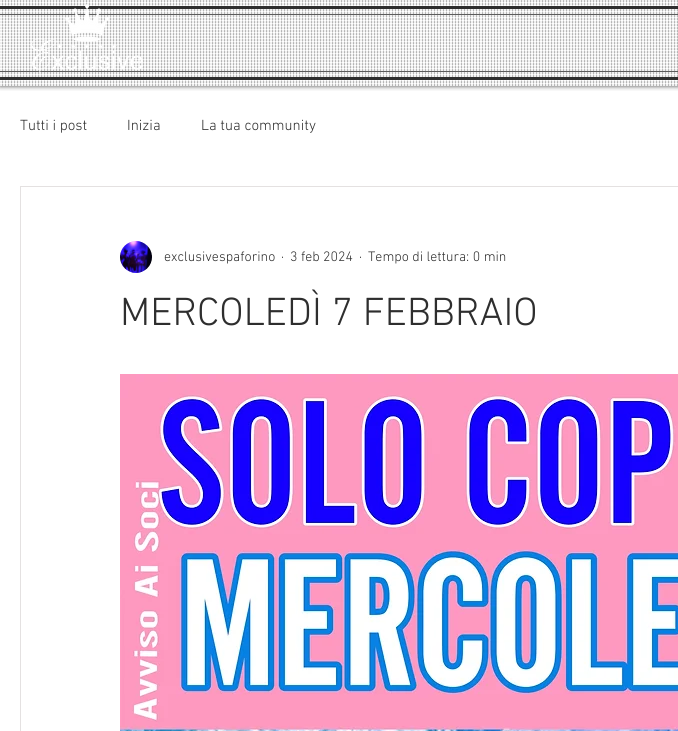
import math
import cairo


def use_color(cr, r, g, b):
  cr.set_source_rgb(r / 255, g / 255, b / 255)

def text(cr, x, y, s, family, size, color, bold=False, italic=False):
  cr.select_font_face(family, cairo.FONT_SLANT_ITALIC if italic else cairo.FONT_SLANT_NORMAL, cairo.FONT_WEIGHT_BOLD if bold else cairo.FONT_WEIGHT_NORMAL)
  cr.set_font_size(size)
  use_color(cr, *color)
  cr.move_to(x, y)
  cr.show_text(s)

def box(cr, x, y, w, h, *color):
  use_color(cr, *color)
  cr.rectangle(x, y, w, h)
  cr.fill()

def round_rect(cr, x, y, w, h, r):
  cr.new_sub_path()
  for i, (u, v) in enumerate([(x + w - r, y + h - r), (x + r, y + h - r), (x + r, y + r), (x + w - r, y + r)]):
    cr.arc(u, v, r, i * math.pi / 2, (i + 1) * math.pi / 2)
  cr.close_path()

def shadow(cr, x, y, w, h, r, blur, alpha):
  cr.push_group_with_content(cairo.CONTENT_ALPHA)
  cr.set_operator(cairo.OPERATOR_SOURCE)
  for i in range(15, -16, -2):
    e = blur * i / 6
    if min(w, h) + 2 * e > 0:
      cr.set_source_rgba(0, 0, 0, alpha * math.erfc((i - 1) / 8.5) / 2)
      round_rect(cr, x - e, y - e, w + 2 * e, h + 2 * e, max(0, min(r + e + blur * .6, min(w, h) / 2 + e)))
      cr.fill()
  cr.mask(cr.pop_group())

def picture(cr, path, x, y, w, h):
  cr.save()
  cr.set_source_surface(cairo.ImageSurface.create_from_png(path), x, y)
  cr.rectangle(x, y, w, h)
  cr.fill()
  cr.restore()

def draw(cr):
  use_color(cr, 255, 255, 255)
  cr.paint()
  picture(cr, "img_01.png", 0, 0, 678, 86)
  cr.save()
  cr.rectangle(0, 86, 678, 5)
  cr.clip()
  use_color(cr, 0, 0, 0)
  shadow(cr, 0, 0, 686, 86, 0, 2.5, 0.7)
  cr.restore()
  box(cr, 0, 6, 678, 3, 46, 46, 46)
  box(cr, 0, 77, 678, 3, 46, 46, 46)
  box(cr, 0, 14, 678, 1, 92, 92, 92)
  box(cr, 0, 71, 678, 1, 92, 92, 92)
  picture(cr, "img_02.png", 31, 4, 113, 69)
  cr.rectangle(20.5, 186.5, 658, 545)
  use_color(cr, 228, 225, 225)
  cr.set_line_width(1)
  cr.stroke()
  picture(cr, "img_03.png", 120, 241, 32, 32)
  picture(cr, "img_04.png", 120, 374, 558, 357)
  text(cr, 20, 130, "Tutti i post", "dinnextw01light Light", 15, (46, 46, 46))
  text(cr, 127, 130, "Inizia", "dinnextw01light Light", 15, (46, 46, 46))
  text(cr, 201, 130, "La tua community", "dinnextw01light Light", 15, (46, 46, 46))
  text(cr, 164, 261, "exclusivespaforino", "dinnextw01light Light", 14, (46, 46, 46))
  text(cr, 281, 261, "·", "dinnextw01light Light", 14, (46, 46, 46))
  text(cr, 290, 261, "3 feb 2024", "dinnextw01light Light", 14, (46, 46, 46))
  text(cr, 359, 261, "·", "dinnextw01light Light", 14, (46, 46, 46))
  text(cr, 368, 261, "Tempo di lettura: 0 min", "dinnextw01light Light", 14, (46, 46, 46))
  text(cr, 120, 325, "MERCOLEDÌ 7 FEBBRAIO", "dinnextw01light Light", 40, (46, 46, 46))


surface = cairo.ImageSurface(cairo.FORMAT_RGB24, 678, 731)
cr = cairo.Context(surface)
options = cairo.FontOptions()
options.set_hint_metrics(cairo.HINT_METRICS_OFF)
options.set_hint_style(cairo.HINT_STYLE_NONE)
cr.set_font_options(options)
cr.set_miter_limit(4)
draw(cr)
surface.write_to_png("out.png")
